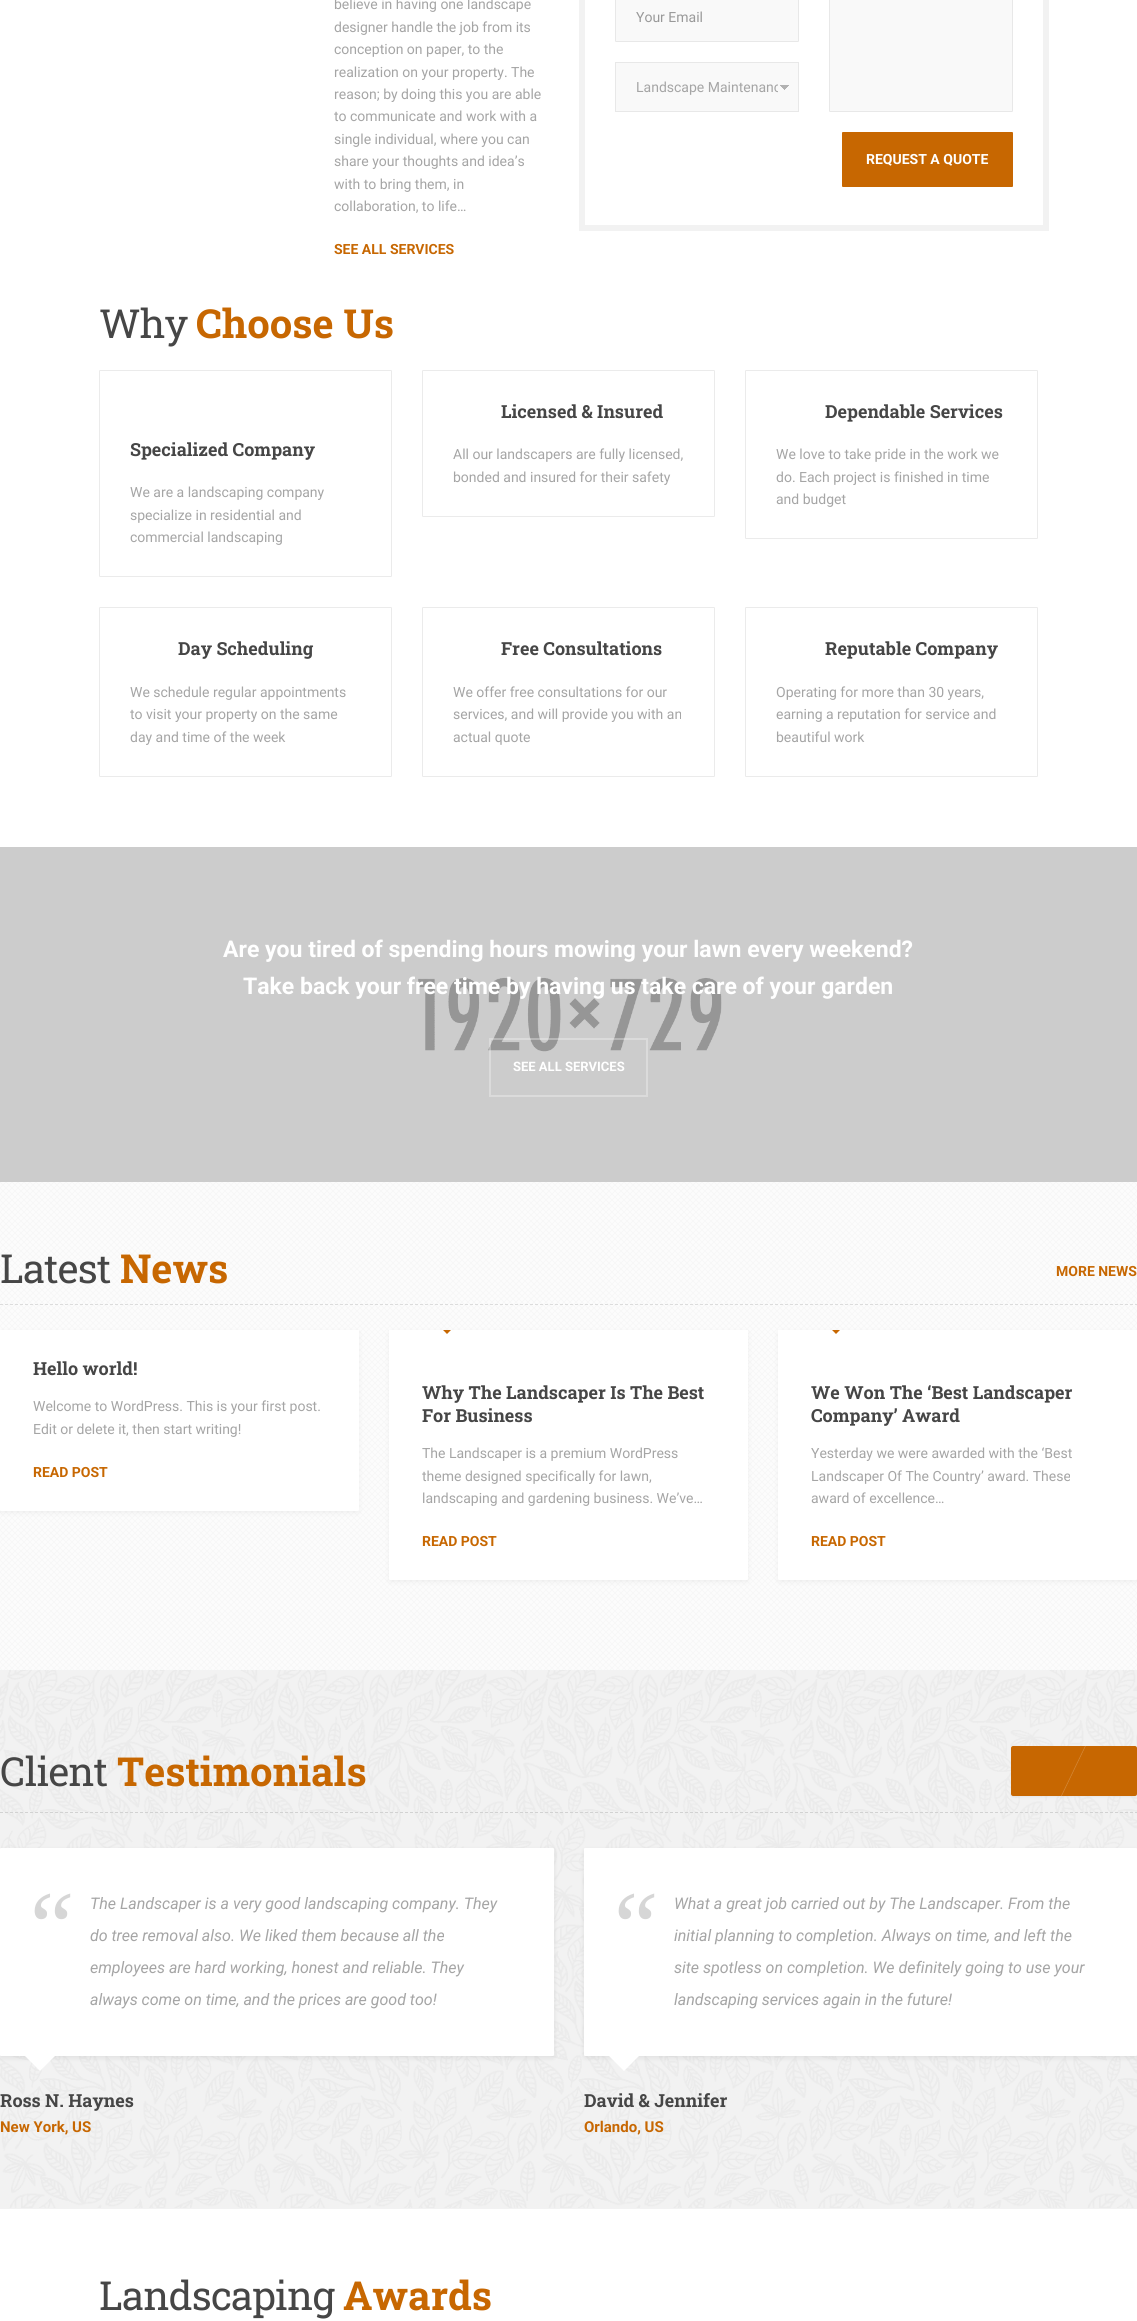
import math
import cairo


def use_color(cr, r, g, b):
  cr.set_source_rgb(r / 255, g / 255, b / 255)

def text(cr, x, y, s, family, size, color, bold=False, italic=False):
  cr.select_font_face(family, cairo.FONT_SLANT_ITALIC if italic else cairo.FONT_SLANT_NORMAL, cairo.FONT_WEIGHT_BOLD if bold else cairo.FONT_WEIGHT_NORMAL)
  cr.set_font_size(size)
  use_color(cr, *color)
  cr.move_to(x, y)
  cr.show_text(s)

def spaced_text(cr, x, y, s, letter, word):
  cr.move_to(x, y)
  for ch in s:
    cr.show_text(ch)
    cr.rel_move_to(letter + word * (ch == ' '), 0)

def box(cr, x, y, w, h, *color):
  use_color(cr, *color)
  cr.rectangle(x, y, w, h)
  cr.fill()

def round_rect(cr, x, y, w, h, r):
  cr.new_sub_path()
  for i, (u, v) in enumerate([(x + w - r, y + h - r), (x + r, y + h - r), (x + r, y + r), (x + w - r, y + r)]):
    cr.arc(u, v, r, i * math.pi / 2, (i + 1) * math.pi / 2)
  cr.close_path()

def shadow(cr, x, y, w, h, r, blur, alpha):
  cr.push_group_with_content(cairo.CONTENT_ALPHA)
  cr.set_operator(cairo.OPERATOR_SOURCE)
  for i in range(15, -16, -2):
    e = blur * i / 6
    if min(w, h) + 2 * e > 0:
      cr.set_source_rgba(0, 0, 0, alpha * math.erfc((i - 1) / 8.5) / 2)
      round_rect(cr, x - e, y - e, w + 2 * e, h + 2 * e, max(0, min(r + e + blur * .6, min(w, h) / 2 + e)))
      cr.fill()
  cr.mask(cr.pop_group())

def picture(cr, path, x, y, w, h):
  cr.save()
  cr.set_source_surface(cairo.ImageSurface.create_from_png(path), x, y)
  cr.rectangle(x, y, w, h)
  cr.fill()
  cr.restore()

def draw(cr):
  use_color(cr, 255, 255, 255)
  cr.paint()
  cr.rectangle(582, -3, 464, 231)
  use_color(cr, 242, 242, 242)
  cr.set_line_width(6)
  cr.stroke()
  use_color(cr, 249, 249, 249)
  round_rect(cr, 615.5, -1.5, 183, 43, 0.5)
  cr.fill_preserve()
  use_color(cr, 232, 232, 232)
  cr.set_line_width(1)
  cr.stroke()
  box(cr, 616, 63, 182, 48, 249, 249, 249)
  picture(cr, "img_01.png", 780, 85, 9, 5)
  cr.rectangle(615.5, 62.5, 183, 49)
  use_color(cr, 232, 232, 232)
  cr.stroke()
  use_color(cr, 249, 249, 249)
  round_rect(cr, 829.5, -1.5, 183, 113, 0.5)
  cr.fill_preserve()
  use_color(cr, 232, 232, 232)
  cr.stroke()
  use_color(cr, 199, 103, 1)
  round_rect(cr, 842, 132, 171, 55, 1)
  cr.fill()
  round_rect(cr, 99.5, 370.5, 292, 206, 0.5)
  use_color(cr, 235, 235, 235)
  cr.stroke()
  round_rect(cr, 422.5, 370.5, 292, 146, 0.5)
  cr.stroke()
  round_rect(cr, 745.5, 370.5, 292, 168, 0.5)
  cr.stroke()
  round_rect(cr, 99.5, 607.5, 292, 169, 0.5)
  cr.stroke()
  round_rect(cr, 422.5, 607.5, 292, 169, 0.5)
  cr.stroke()
  round_rect(cr, 745.5, 607.5, 292, 169, 0.5)
  cr.stroke()
  picture(cr, "img_02.png", 0, 847, 1137, 335)
  cr.rectangle(490, 1039, 157, 57)
  cr.set_source_rgba(0.98, 0.98, 0.98, 0.33)
  cr.set_line_width(2)
  cr.stroke()
  picture(cr, "img_03.png", 0, 1182, 1137, 488)
  cr.new_path()
  cr.move_to(0, 1304.5)
  cr.line_to(1137, 1304.5)
  use_color(cr, 220, 220, 220)
  cr.set_line_width(1)
  cr.set_dash([3, 2])
  cr.stroke()
  use_color(cr, 0, 0, 0)
  shadow(cr, 0, 1332, 359, 181, 1, 2.5, 0.05)
  use_color(cr, 255, 255, 255)
  cr.new_path()
  cr.move_to(0, 1330)
  cr.line_to(359, 1330)
  cr.line_to(359, 1510)
  cr.curve_to(359, 1510.5, 358.5, 1511, 358, 1511)
  cr.line_to(1, 1511)
  cr.curve_to(0.5, 1511, 0, 1510.5, 0, 1510)
  cr.close_path()
  cr.fill()
  use_color(cr, 0, 0, 0)
  shadow(cr, 389, 1332, 359, 250, 1, 2.5, 0.05)
  use_color(cr, 255, 255, 255)
  cr.new_path()
  cr.move_to(389, 1330)
  cr.line_to(748, 1330)
  cr.line_to(748, 1579)
  cr.curve_to(748, 1579.5, 747.5, 1580, 747, 1580)
  cr.line_to(390, 1580)
  cr.curve_to(389.5, 1580, 389, 1579.5, 389, 1579)
  cr.close_path()
  cr.fill()
  cr.save()
  cr.rectangle(389, 1330, 359, 24)
  cr.clip()
  use_color(cr, 199, 103, 1)
  cr.new_path()
  cr.move_to(442, 1329)
  cr.line_to(452, 1329)
  cr.line_to(447, 1334)
  cr.close_path()
  cr.fill()
  cr.restore()
  use_color(cr, 0, 0, 0)
  shadow(cr, 778, 1332, 359, 250, 1, 2.5, 0.05)
  use_color(cr, 255, 255, 255)
  cr.new_path()
  cr.move_to(778, 1330)
  cr.line_to(1137, 1330)
  cr.line_to(1137, 1579)
  cr.curve_to(1137, 1579.5, 1136.5, 1580, 1136, 1580)
  cr.line_to(779, 1580)
  cr.curve_to(778.5, 1580, 778, 1579.5, 778, 1579)
  cr.close_path()
  cr.fill()
  cr.save()
  cr.rectangle(778, 1330, 359, 24)
  cr.clip()
  use_color(cr, 199, 103, 1)
  cr.new_path()
  cr.move_to(831, 1329)
  cr.line_to(841, 1329)
  cr.line_to(836, 1334)
  cr.close_path()
  cr.fill()
  cr.restore()
  picture(cr, "img_04.png", 0, 1670, 1137, 539)
  cr.new_path()
  cr.move_to(0, 1812.5)
  cr.line_to(1137, 1812.5)
  use_color(cr, 210, 210, 210)
  cr.stroke()
  use_color(cr, 0, 0, 0)
  shadow(cr, 1074, 1747, 63, 50, 2, 1, 0.05)
  use_color(cr, 199, 103, 1)
  cr.new_path()
  cr.move_to(1074, 1746)
  cr.line_to(1135, 1746)
  cr.curve_to(1136, 1746, 1137, 1747, 1137, 1748)
  cr.line_to(1137, 1794)
  cr.curve_to(1137, 1795, 1136, 1796, 1135, 1796)
  cr.line_to(1074, 1796)
  cr.close_path()
  cr.fill()
  use_color(cr, 0, 0, 0)
  shadow(cr, 1011, 1747, 63, 50, 2, 1, 0.05)
  use_color(cr, 199, 103, 1)
  cr.new_path()
  cr.move_to(1013, 1746)
  cr.line_to(1074, 1746)
  cr.line_to(1074, 1796)
  cr.line_to(1013, 1796)
  cr.curve_to(1012, 1796, 1011, 1795, 1011, 1794)
  cr.line_to(1011, 1748)
  cr.curve_to(1011, 1747, 1012, 1746, 1013, 1746)
  cr.close_path()
  cr.fill()
  cr.new_path()
  cr.move_to(1073, 1746)
  cr.line_to(1086, 1746)
  cr.line_to(1062, 1796)
  cr.line_to(1049, 1796)
  cr.close_path()
  cr.fill()
  use_color(cr, 210, 133, 52)
  cr.new_path()
  cr.move_to(1085, 1746)
  cr.line_to(1086, 1746)
  cr.line_to(1062, 1796)
  cr.line_to(1061, 1796)
  cr.close_path()
  cr.fill()
  use_color(cr, 199, 103, 1)
  cr.new_path()
  cr.move_to(1086, 1746)
  cr.line_to(1099, 1746)
  cr.line_to(1075, 1796)
  cr.line_to(1062, 1796)
  cr.close_path()
  cr.fill()
  use_color(cr, 0, 0, 0)
  shadow(cr, 0, 1850, 554, 208, 1, 2.5, 0.08)
  use_color(cr, 255, 255, 255)
  round_rect(cr, 0, 1848, 554, 208, 1)
  cr.fill()
  cr.new_path()
  cr.move_to(25, 2056)
  cr.line_to(55, 2056)
  cr.line_to(40, 2071)
  cr.close_path()
  cr.fill()
  use_color(cr, 0, 0, 0)
  shadow(cr, 584, 1850, 553, 208, 1, 2.5, 0.08)
  use_color(cr, 255, 255, 255)
  round_rect(cr, 584, 1848, 553, 208, 1)
  cr.fill()
  cr.new_path()
  cr.move_to(609, 2056)
  cr.line_to(639, 2056)
  cr.line_to(624, 2071)
  cr.close_path()
  cr.fill()
  text(cr, 334, 9, "believe in having one landscape", "Roboto", 14, (165, 165, 165))
  text(cr, 334, 32, "designer handle the job from its", "Roboto", 14, (165, 165, 165))
  text(cr, 334, 54, "conception on paper, to the", "Roboto", 14, (165, 165, 165))
  text(cr, 334, 77, "realization on your property. The", "Roboto", 14, (165, 165, 165))
  text(cr, 334, 99, "reason; by doing this you are able", "Roboto", 14, (165, 165, 165))
  text(cr, 334, 121, "to communicate and work with a", "Roboto", 14, (165, 165, 165))
  text(cr, 334, 144, "single individual, where you can", "Roboto", 14, (165, 165, 165))
  text(cr, 334, 166, "share your thoughts and idea’s", "Roboto", 14, (165, 165, 165))
  text(cr, 334, 189, "with to bring them, in", "Roboto", 14, (165, 165, 165))
  text(cr, 334, 211, "collaboration, to life…", "Roboto", 14, (165, 165, 165))
  text(cr, 334, 254, "SEE ALL SERVICES", "Roboto", 14, (199, 103, 1), bold=True)
  text(cr, 636, 22, "Your Email", "Roboto", 14, (153, 153, 153))
  cr.save()
  cr.rectangle(636, 76, 142, 22)
  cr.clip()
  text(cr, 636, 92, "Landscape Maintenanc", "Roboto", 14, (165, 165, 165))
  cr.restore()
  text(cr, 866, 164, "REQUEST A QUOTE", "Roboto", 14, (255, 255, 255), bold=True)
  cr.select_font_face("Roboto Slab")
  cr.set_font_size(40)
  use_color(cr, 70, 70, 70)
  spaced_text(cr, 99, 338, "Why", -0.75, 0)
  text(cr, 196, 338, "Choose Us", "Roboto Slab", 40, (199, 103, 1), bold=True)
  text(cr, 130, 456, "Specialized Company", "Roboto Slab", 18, (70, 70, 70), bold=True)
  text(cr, 130, 497, "We are a landscaping company", "Roboto", 14, (165, 165, 165))
  text(cr, 130, 520, "specialize in residential and", "Roboto", 14, (165, 165, 165))
  text(cr, 130, 542, "commercial landscaping", "Roboto", 14, (165, 165, 165))
  text(cr, 501, 418, "Licensed & Insured", "Roboto Slab", 18, (70, 70, 70), bold=True)
  text(cr, 453, 459, "All our landscapers are fully licensed,", "Roboto", 14, (165, 165, 165))
  text(cr, 453, 482, "bonded and insured for their safety", "Roboto", 14, (165, 165, 165))
  text(cr, 825, 418, "Dependable Services", "Roboto Slab", 18, (70, 70, 70), bold=True)
  text(cr, 776, 459, "We love to take pride in the work we", "Roboto", 14, (165, 165, 165))
  text(cr, 776, 482, "do. Each project is finished in time", "Roboto", 14, (165, 165, 165))
  text(cr, 776, 504, "and budget", "Roboto", 14, (165, 165, 165))
  text(cr, 178, 655, "Day Scheduling", "Roboto Slab", 18, (70, 70, 70), bold=True)
  text(cr, 130, 697, "We schedule regular appointments", "Roboto", 14, (165, 165, 165))
  text(cr, 130, 719, "to visit your property on the same", "Roboto", 14, (165, 165, 165))
  text(cr, 130, 742, "day and time of the week", "Roboto", 14, (165, 165, 165))
  text(cr, 501, 655, "Free Consultations", "Roboto Slab", 18, (70, 70, 70), bold=True)
  text(cr, 453, 697, "We offer free consultations for our", "Roboto", 14, (165, 165, 165))
  text(cr, 453, 719, "services, and will provide you with an", "Roboto", 14, (165, 165, 165))
  text(cr, 453, 742, "actual quote", "Roboto", 14, (165, 165, 165))
  text(cr, 825, 655, "Reputable Company", "Roboto Slab", 18, (70, 70, 70), bold=True)
  text(cr, 776, 697, "Operating for more than 30 years,", "Roboto", 14, (165, 165, 165))
  text(cr, 776, 719, "earning a reputation for service and", "Roboto", 14, (165, 165, 165))
  text(cr, 776, 742, "beautiful work", "Roboto", 14, (165, 165, 165))
  text(cr, 223, 957, "Are you tired of spending hours mowing your lawn every weekend?", "Roboto", 23, (255, 255, 255), bold=True)
  text(cr, 243, 994, "Take back your free time by having us take care of your garden", "Roboto", 23, (255, 255, 255), bold=True)
  text(cr, 513, 1071, "SEE ALL SERVICES", "Roboto", 13, (255, 255, 255), bold=True)
  cr.select_font_face("Roboto Slab")
  cr.set_font_size(40)
  use_color(cr, 70, 70, 70)
  spaced_text(cr, 0, 1283, "Latest", -0.75, 0)
  text(cr, 120, 1283, "News", "Roboto Slab", 40, (199, 103, 1), bold=True)
  text(cr, 1056, 1276, "MORE NEWS", "Roboto", 14, (199, 103, 1), bold=True)
  text(cr, 33, 1375, "Hello world!", "Roboto Slab", 18, (70, 70, 70), bold=True)
  text(cr, 33, 1411, "Welcome to WordPress. This is your first post.", "Roboto", 14, (165, 165, 165))
  text(cr, 33, 1434, "Edit or delete it, then start writing!", "Roboto", 14, (165, 165, 165))
  text(cr, 33, 1477, "READ POST", "Roboto", 14, (199, 103, 1), bold=True)
  text(cr, 422, 1399, "Why The Landscaper Is The Best", "Roboto Slab", 18, (70, 70, 70), bold=True)
  text(cr, 422, 1422, "For Business", "Roboto Slab", 18, (70, 70, 70), bold=True)
  text(cr, 422, 1458, "The Landscaper is a premium WordPress", "Roboto", 14, (165, 165, 165))
  text(cr, 422, 1481, "theme designed specifically for lawn,", "Roboto", 14, (165, 165, 165))
  text(cr, 422, 1503, "landscaping and gardening business. We’ve…", "Roboto", 14, (165, 165, 165))
  text(cr, 422, 1546, "READ POST", "Roboto", 14, (199, 103, 1), bold=True)
  text(cr, 811, 1399, "We Won The ‘Best Landscaper", "Roboto Slab", 18, (70, 70, 70), bold=True)
  text(cr, 811, 1422, "Company’ Award", "Roboto Slab", 18, (70, 70, 70), bold=True)
  text(cr, 811, 1458, "Yesterday we were awarded with the ‘Best", "Roboto", 14, (165, 165, 165))
  text(cr, 811, 1481, "Landscaper Of The Country’ award. These", "Roboto", 14, (165, 165, 165))
  text(cr, 811, 1503, "award of excellence…", "Roboto", 14, (165, 165, 165))
  text(cr, 811, 1546, "READ POST", "Roboto", 14, (199, 103, 1), bold=True)
  cr.select_font_face("Roboto Slab")
  cr.set_font_size(40)
  use_color(cr, 70, 70, 70)
  spaced_text(cr, 0, 1786, "Client", -0.75, 0)
  text(cr, 117, 1786, "Testimonials", "Roboto Slab", 40, (199, 103, 1), bold=True)
  text(cr, 20, 1960, "“", "Liberation Serif", 100, (214, 214, 214), italic=True)
  text(cr, 90, 1909, "The Landscaper is a very good landscaping company. They", "Roboto", 16, (165, 165, 165), italic=True)
  text(cr, 90, 1941, "do tree removal also. We liked them because all the", "Roboto", 16, (165, 165, 165), italic=True)
  text(cr, 90, 1973, "employees are hard working, honest and reliable. They", "Roboto", 16, (165, 165, 165), italic=True)
  text(cr, 90, 2005, "always come on time, and the prices are good too!", "Roboto", 16, (165, 165, 165), italic=True)
  text(cr, 0, 2107, "Ross N. Haynes", "Roboto Slab", 18, (70, 70, 70), bold=True)
  text(cr, 0, 2132, "New York, US", "Roboto", 15, (199, 103, 1), bold=True)
  text(cr, 604, 1960, "“", "Liberation Serif", 100, (214, 214, 214), italic=True)
  text(cr, 674, 1909, "What a great job carried out by The Landscaper. From the", "Roboto", 16, (165, 165, 165), italic=True)
  text(cr, 674, 1941, "initial planning to completion. Always on time, and left the", "Roboto", 16, (165, 165, 165), italic=True)
  text(cr, 674, 1973, "site spotless on completion. We definitely going to use your", "Roboto", 16, (165, 165, 165), italic=True)
  text(cr, 674, 2005, "landscaping services again in the future!", "Roboto", 16, (165, 165, 165), italic=True)
  text(cr, 584, 2107, "David & Jennifer", "Roboto Slab", 18, (70, 70, 70), bold=True)
  text(cr, 584, 2132, "Orlando, US", "Roboto", 15, (199, 103, 1), bold=True)
  cr.select_font_face("Roboto Slab")
  cr.set_font_size(40)
  use_color(cr, 70, 70, 70)
  spaced_text(cr, 99, 2310, "Landscaping", -0.75, 0)
  text(cr, 343, 2310, "Awards", "Roboto Slab", 40, (199, 103, 1), bold=True)


surface = cairo.ImageSurface(cairo.FORMAT_RGB24, 1137, 2321)
cr = cairo.Context(surface)
options = cairo.FontOptions()
options.set_hint_metrics(cairo.HINT_METRICS_OFF)
options.set_hint_style(cairo.HINT_STYLE_NONE)
cr.set_font_options(options)
cr.set_miter_limit(4)
draw(cr)
surface.write_to_png("out.png")
